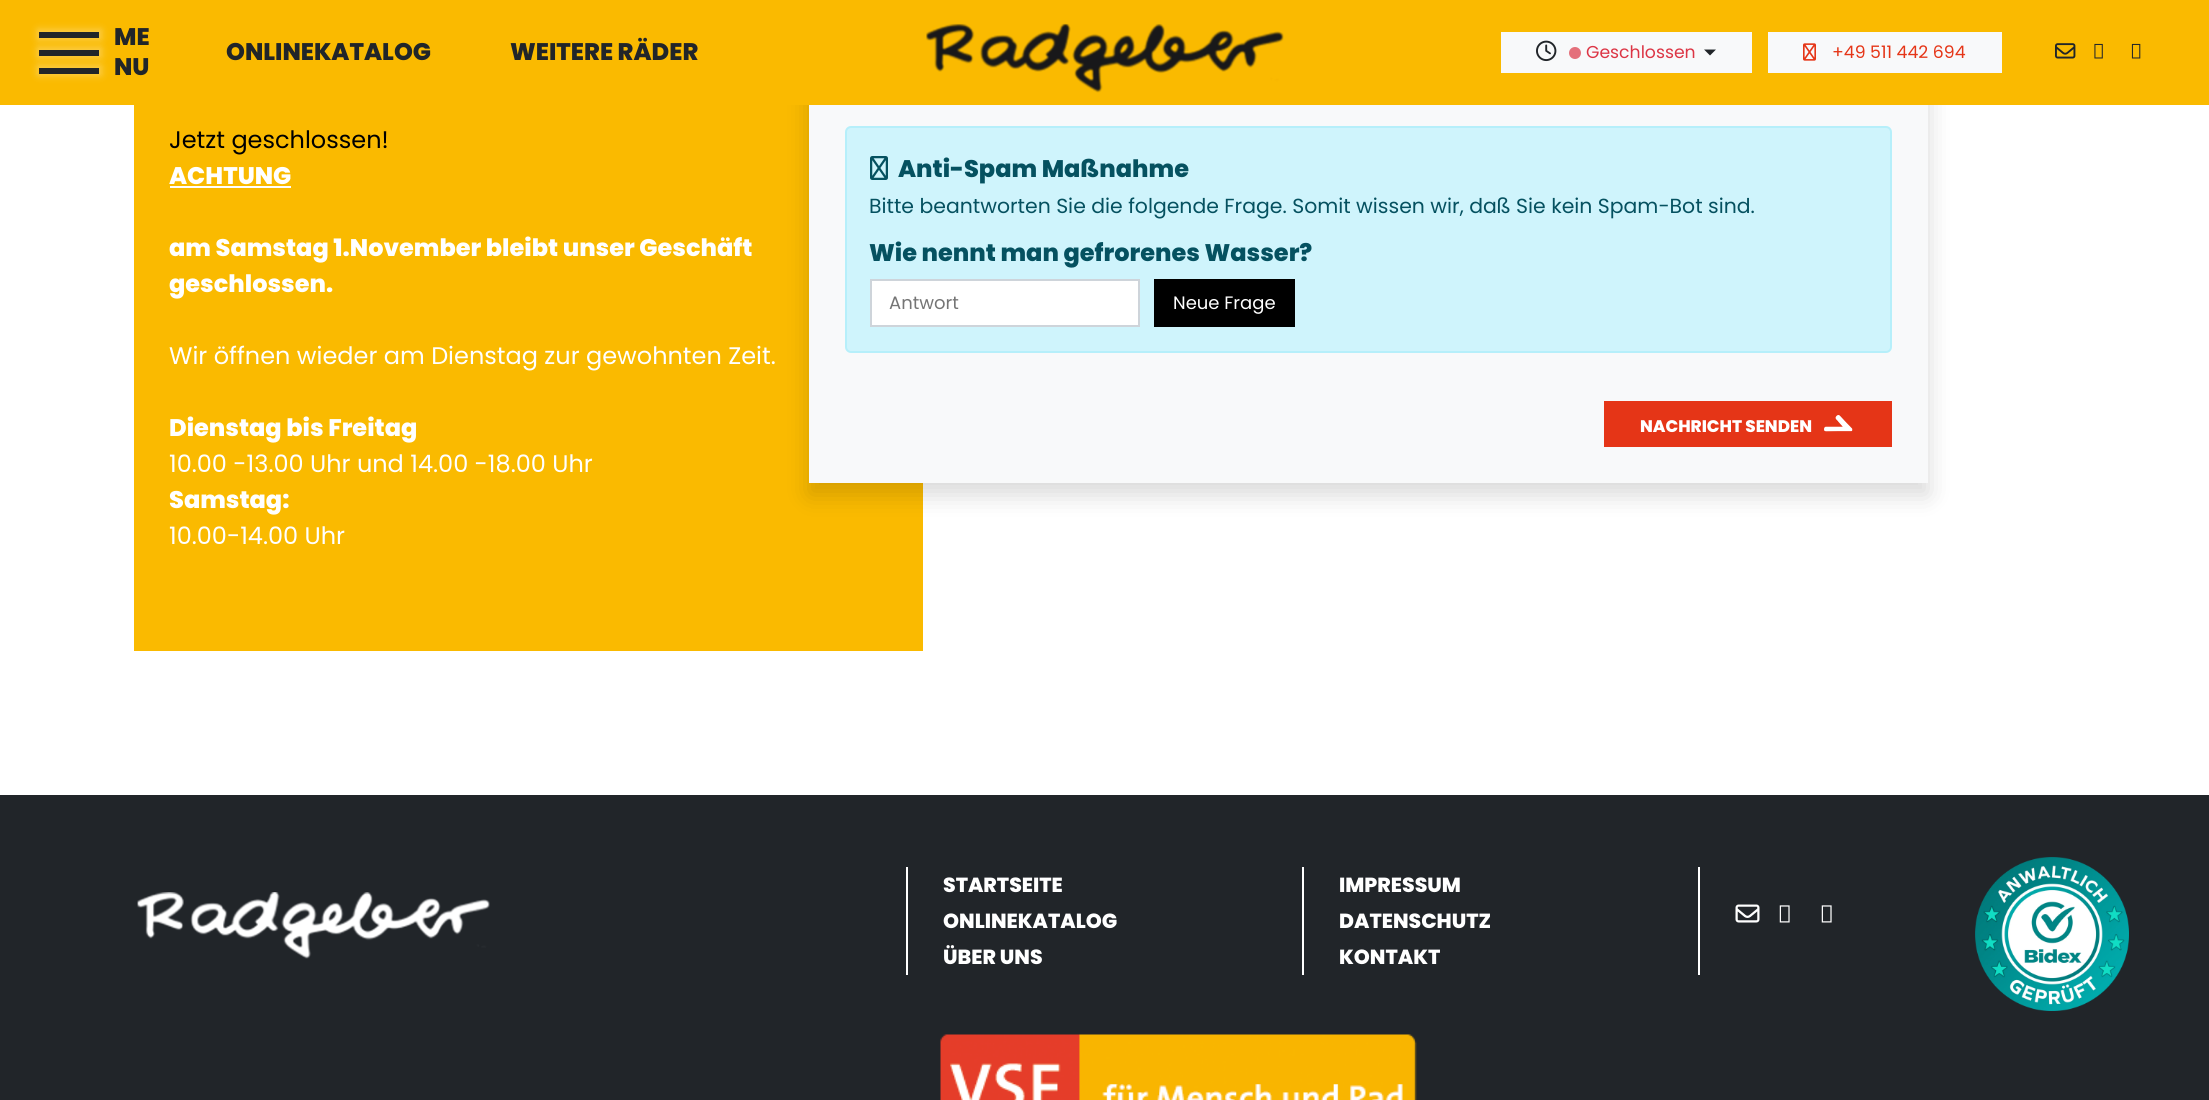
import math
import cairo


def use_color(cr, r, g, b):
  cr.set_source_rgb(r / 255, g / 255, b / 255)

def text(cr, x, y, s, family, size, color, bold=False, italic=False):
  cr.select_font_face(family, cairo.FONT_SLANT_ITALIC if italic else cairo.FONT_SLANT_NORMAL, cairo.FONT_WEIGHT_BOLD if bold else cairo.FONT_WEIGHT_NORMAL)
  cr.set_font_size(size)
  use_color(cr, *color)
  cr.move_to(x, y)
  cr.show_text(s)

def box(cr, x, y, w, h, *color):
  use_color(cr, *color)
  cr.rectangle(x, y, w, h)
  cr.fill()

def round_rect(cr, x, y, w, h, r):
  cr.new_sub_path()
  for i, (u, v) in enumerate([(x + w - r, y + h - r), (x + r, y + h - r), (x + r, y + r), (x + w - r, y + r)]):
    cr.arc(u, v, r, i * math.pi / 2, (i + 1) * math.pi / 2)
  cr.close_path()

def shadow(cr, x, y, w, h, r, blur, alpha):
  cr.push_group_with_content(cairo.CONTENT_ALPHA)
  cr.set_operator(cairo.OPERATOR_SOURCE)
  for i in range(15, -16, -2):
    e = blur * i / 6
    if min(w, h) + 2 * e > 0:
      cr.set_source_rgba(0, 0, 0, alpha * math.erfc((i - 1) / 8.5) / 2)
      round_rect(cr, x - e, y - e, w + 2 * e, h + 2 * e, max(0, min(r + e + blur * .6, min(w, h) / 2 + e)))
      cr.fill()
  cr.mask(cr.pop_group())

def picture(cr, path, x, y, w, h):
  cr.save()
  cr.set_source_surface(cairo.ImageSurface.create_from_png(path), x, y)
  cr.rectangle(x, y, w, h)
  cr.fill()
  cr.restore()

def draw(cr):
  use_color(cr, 255, 255, 255)
  cr.paint()
  box(cr, 134, 105, 789, 546, 250, 186, 0)
  use_color(cr, 0, 0, 0)
  shadow(cr, 809, -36, 1119, 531, 0, 12, 0.15)
  box(cr, 0, 0, 2209, 105, 250, 186, 0)
  use_color(cr, 255, 255, 255)
  shadow(cr, 38, 48, 63, 9, 0, 4, 0.33)
  box(cr, 39, 50, 60, 6, 33, 37, 41)
  use_color(cr, 255, 255, 255)
  shadow(cr, 38, 30, 63, 9, 0, 4, 0.33)
  box(cr, 39, 32, 60, 6, 33, 37, 41)
  use_color(cr, 255, 255, 255)
  shadow(cr, 38, 66, 63, 9, 0, 4, 0.33)
  box(cr, 39, 68, 60, 6, 33, 37, 41)
  picture(cr, "img_01.png", 926, 23, 358, 70)
  box(cr, 1501, 32, 251, 41, 248, 249, 250)
  picture(cr, "img_02.png", 1536, 40, 21, 22)
  use_color(cr, 228, 112, 123)
  cr.arc(1575, 53, 6, 0, 2 * math.pi)
  cr.fill()
  use_color(cr, 33, 37, 41)
  cr.new_path()
  cr.move_to(1704, 49.5)
  cr.line_to(1716, 49.5)
  cr.line_to(1710, 55.5)
  cr.close_path()
  cr.fill()
  box(cr, 1768, 32, 234, 41, 248, 249, 250)
  picture(cr, "img_03.png", 1803, 43, 13, 18)
  picture(cr, "img_04.png", 2055, 43, 21, 16)
  picture(cr, "img_05.png", 2094, 43, 9, 16)
  picture(cr, "img_06.png", 2131, 43, 10, 16)
  box(cr, 170, 186, 121, 2, 255, 255, 255)
  box(cr, 809, 105, 1119, 378, 248, 249, 250)
  use_color(cr, 207, 244, 252)
  round_rect(cr, 846, 127, 1045, 225, 5)
  cr.fill_preserve()
  use_color(cr, 182, 239, 250)
  cr.stroke()
  picture(cr, "img_07.png", 870, 156, 18, 24)
  use_color(cr, 255, 255, 255)
  cr.rectangle(871, 280, 268, 46)
  cr.fill_preserve()
  use_color(cr, 206, 212, 218)
  cr.stroke()
  box(cr, 1154, 279, 141, 48, 0, 0, 0)
  box(cr, 1604, 401, 288, 46, 229, 53, 23)
  picture(cr, "img_08.png", 1824, 415, 29, 17)
  box(cr, 0, 795, 2209, 305, 33, 37, 41)
  picture(cr, "img_09.png", 137, 892, 353, 67)
  box(cr, 906, 867, 2, 108, 255, 255, 255)
  box(cr, 1302, 867, 2, 108, 255, 255, 255)
  box(cr, 1698, 867, 2, 108, 255, 255, 255)
  picture(cr, "img_10.png", 1735, 904, 25, 19)
  picture(cr, "img_11.png", 1779, 905, 11, 18)
  picture(cr, "img_11.png", 1821, 905, 11, 18)
  picture(cr, "img_12.png", 1975, 857, 154, 154)
  picture(cr, "img_13.png", 940, 1034, 477, 66)
  text(cr, 114, 45, "ME", "Poppins ExtraBold", 24, (33, 37, 41))
  text(cr, 114, 75, "NU", "Poppins ExtraBold", 24, (33, 37, 41))
  text(cr, 226, 60, "ONLINEKATALOG", "Poppins ExtraBold", 24, (33, 37, 41))
  text(cr, 510, 60, "WEITERE RÄDER", "Poppins ExtraBold", 24, (33, 37, 41))
  text(cr, 1586, 58, "Geschlossen", "Poppins", 17.25, (220, 53, 69))
  text(cr, 1832, 58, "+49 511 442 694", "Poppins", 17.25, (229, 53, 23))
  text(cr, 169, 148, "Jetzt geschlossen!", "Poppins", 24, (0, 0, 0))
  text(cr, 169, 184, "ACHTUNG", "Poppins ExtraBold", 24, (255, 255, 255))
  text(cr, 169, 256, "am Samstag 1.November bleibt unser Geschäft", "Poppins ExtraBold", 24, (255, 255, 255))
  text(cr, 169, 292, "geschlossen.", "Poppins ExtraBold", 24, (255, 255, 255))
  text(cr, 169, 364, "Wir öffnen wieder am Dienstag zur gewohnten Zeit.", "Poppins", 24, (255, 255, 255))
  text(cr, 169, 436, "Dienstag bis Freitag", "Poppins ExtraBold", 24, (255, 255, 255))
  text(cr, 169, 472, "10.00 -13.00 Uhr und 14.00 -18.00 Uhr", "Poppins", 24, (255, 255, 255))
  text(cr, 169, 508, "Samstag:", "Poppins ExtraBold", 24, (255, 255, 255))
  text(cr, 169, 544, "10.00-14.00 Uhr", "Poppins", 24, (255, 255, 255))
  text(cr, 898, 177, "Anti-Spam Maßnahme", "Poppins ExtraBold", 24, (5, 81, 96))
  text(cr, 869, 213, "Bitte beantworten Sie die folgende Frage. Somit wissen wir, daß Sie kein Spam-Bot sind.", "Poppins", 20.4, (5, 81, 96))
  text(cr, 869, 261, "Wie nennt man gefrorenes Wasser?", "Poppins ExtraBold", 24, (5, 81, 96))
  text(cr, 889, 309, "Antwort", "Poppins", 18, (117, 117, 117))
  text(cr, 1173, 309, "Neue Frage", "Poppins", 18, (255, 255, 255))
  text(cr, 1640, 432, "NACHRICHT SENDEN", "Poppins ExtraBold", 16.75, (255, 255, 255))
  text(cr, 943, 892, "STARTSEITE", "Poppins ExtraBold", 20.4, (255, 255, 255))
  text(cr, 943, 928, "ONLINEKATALOG", "Poppins ExtraBold", 20.4, (255, 255, 255))
  text(cr, 943, 964, "ÜBER UNS", "Poppins ExtraBold", 20.4, (255, 255, 255))
  text(cr, 1339, 892, "IMPRESSUM", "Poppins ExtraBold", 20.4, (255, 255, 255))
  text(cr, 1339, 928, "DATENSCHUTZ", "Poppins ExtraBold", 20.4, (255, 255, 255))
  text(cr, 1339, 964, "KONTAKT", "Poppins ExtraBold", 20.4, (255, 255, 255))


surface = cairo.ImageSurface(cairo.FORMAT_RGB24, 2209, 1100)
cr = cairo.Context(surface)
options = cairo.FontOptions()
options.set_hint_metrics(cairo.HINT_METRICS_OFF)
options.set_hint_style(cairo.HINT_STYLE_NONE)
cr.set_font_options(options)
cr.set_miter_limit(4)
draw(cr)
surface.write_to_png("out.png")
